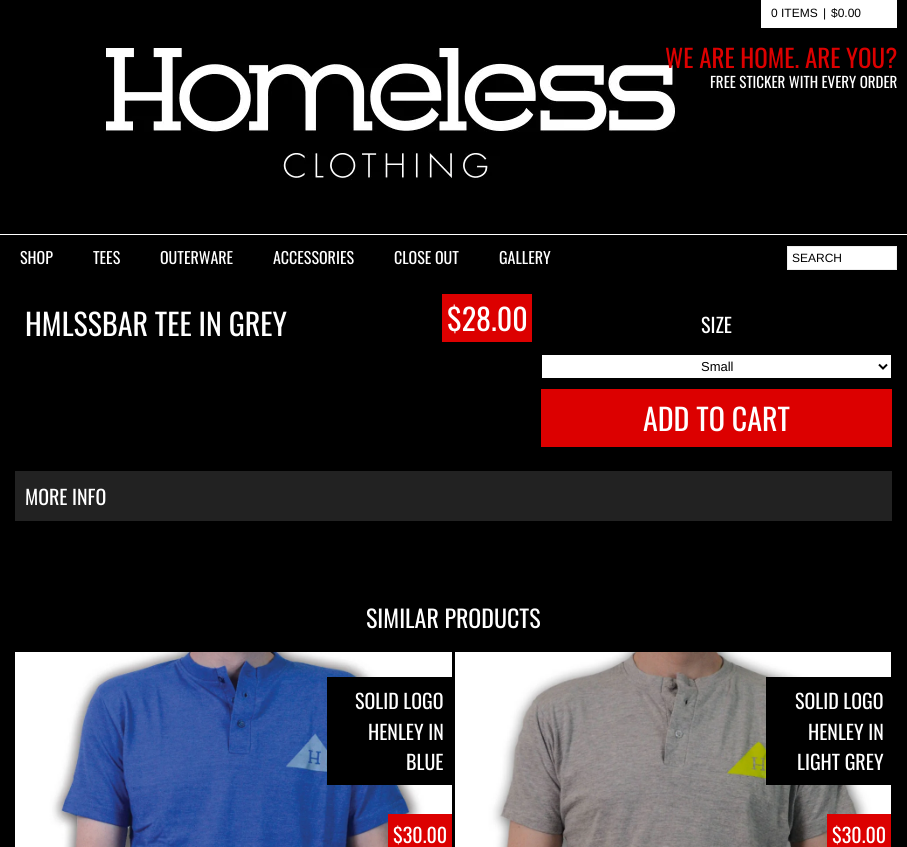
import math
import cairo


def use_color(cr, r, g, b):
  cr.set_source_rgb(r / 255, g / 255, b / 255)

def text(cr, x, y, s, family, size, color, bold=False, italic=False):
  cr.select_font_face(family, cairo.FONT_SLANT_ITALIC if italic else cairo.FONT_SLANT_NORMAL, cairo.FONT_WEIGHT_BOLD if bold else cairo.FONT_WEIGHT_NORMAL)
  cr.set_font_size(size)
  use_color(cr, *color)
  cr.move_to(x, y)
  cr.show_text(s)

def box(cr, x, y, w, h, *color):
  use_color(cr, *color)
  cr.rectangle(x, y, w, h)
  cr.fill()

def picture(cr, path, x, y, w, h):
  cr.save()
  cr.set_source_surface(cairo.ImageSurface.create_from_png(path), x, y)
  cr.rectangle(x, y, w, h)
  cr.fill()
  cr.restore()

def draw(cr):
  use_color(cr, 0, 0, 0)
  cr.paint()
  box(cr, 761, 0, 136, 28, 255, 255, 255)
  picture(cr, "img_01.png", 104, 48, 572, 132)
  box(cr, 0, 234, 907, 1, 255, 255, 255)
  cr.rectangle(787.5, 246.5, 109, 23)
  cr.fill_preserve()
  use_color(cr, 238, 238, 238)
  cr.set_line_width(1)
  cr.stroke()
  box(cr, 442, 294, 90, 48, 220, 0, 0)
  box(cr, 542, 355, 349, 23, 255, 255, 255)
  cr.new_path()
  cr.move_to(879, 364.5)
  cr.line_to(883, 368.5)
  cr.line_to(887, 364.5)
  use_color(cr, 0, 0, 0)
  cr.set_line_width(2)
  cr.stroke()
  box(cr, 541, 389, 351, 58, 220, 0, 0)
  box(cr, 15, 471, 877, 50, 34, 34, 34)
  picture(cr, "img_02.png", 15, 652, 437, 195)
  box(cr, 327, 677, 125, 108, 0, 0, 0)
  box(cr, 388, 814, 64, 33, 220, 0, 0)
  picture(cr, "img_03.png", 455, 652, 436, 195)
  box(cr, 766, 677, 125, 108, 0, 0, 0)
  box(cr, 827, 814, 64, 33, 220, 0, 0)
  text(cr, 771, 17, "0 ITEMS", "Liberation Sans", 12, (0, 0, 0))
  text(cr, 823, 17, "|", "Liberation Sans", 12, (0, 0, 0))
  text(cr, 831, 17, "$0.00", "Liberation Sans", 12, (0, 0, 0))
  text(cr, 665, 68, "WE ARE HOME. ARE YOU?", "Oswald", 25, (220, 0, 0))
  text(cr, 710, 88, "FREE STICKER WITH EVERY ORDER", "Oswald", 15, (255, 255, 255))
  text(cr, 20, 264, "SHOP", "Oswald", 16, (255, 255, 255))
  text(cr, 93, 264, "TEES", "Oswald", 16, (255, 255, 255))
  text(cr, 160, 264, "OUTERWARE", "Oswald", 16, (255, 255, 255))
  text(cr, 273, 264, "ACCESSORIES", "Oswald", 16, (255, 255, 255))
  text(cr, 394, 264, "CLOSE OUT", "Oswald", 16, (255, 255, 255))
  text(cr, 499, 264, "GALLERY", "Oswald", 16, (255, 255, 255))
  text(cr, 792, 262, "SEARCH", "Liberation Sans", 12, (0, 0, 0))
  text(cr, 25, 336, "HMLSSBAR TEE IN GREY", "Oswald", 30, (255, 255, 255))
  text(cr, 447, 331, "$28.00", "Oswald", 30, (255, 255, 255))
  text(cr, 701, 333, "SIZE", "Oswald", 20, (255, 255, 255))
  text(cr, 701, 371, "Small", "Liberation Sans", 13, (0, 0, 0))
  text(cr, 643, 431, "ADD TO CART", "Oswald", 30, (255, 255, 255))
  text(cr, 25, 505, "MORE INFO", "Oswald", 20, (255, 255, 255))
  text(cr, 366, 628, "SIMILAR PRODUCTS", "Oswald", 24, (255, 255, 255))
  text(cr, 355, 709, "SOLID LOGO", "Oswald", 20, (255, 255, 255))
  text(cr, 368, 740, "HENLEY IN", "Oswald", 20, (255, 255, 255))
  text(cr, 406, 770, "BLUE", "Oswald", 20, (255, 255, 255))
  text(cr, 393, 843, "$30.00", "Oswald", 20, (255, 255, 255))
  text(cr, 795, 709, "SOLID LOGO", "Oswald", 20, (255, 255, 255))
  text(cr, 808, 740, "HENLEY IN", "Oswald", 20, (255, 255, 255))
  text(cr, 797, 770, "LIGHT GREY", "Oswald", 20, (255, 255, 255))
  text(cr, 832, 843, "$30.00", "Oswald", 20, (255, 255, 255))


surface = cairo.ImageSurface(cairo.FORMAT_RGB24, 907, 847)
cr = cairo.Context(surface)
options = cairo.FontOptions()
options.set_hint_metrics(cairo.HINT_METRICS_OFF)
options.set_hint_style(cairo.HINT_STYLE_NONE)
cr.set_font_options(options)
cr.set_miter_limit(4)
draw(cr)
surface.write_to_png("out.png")
